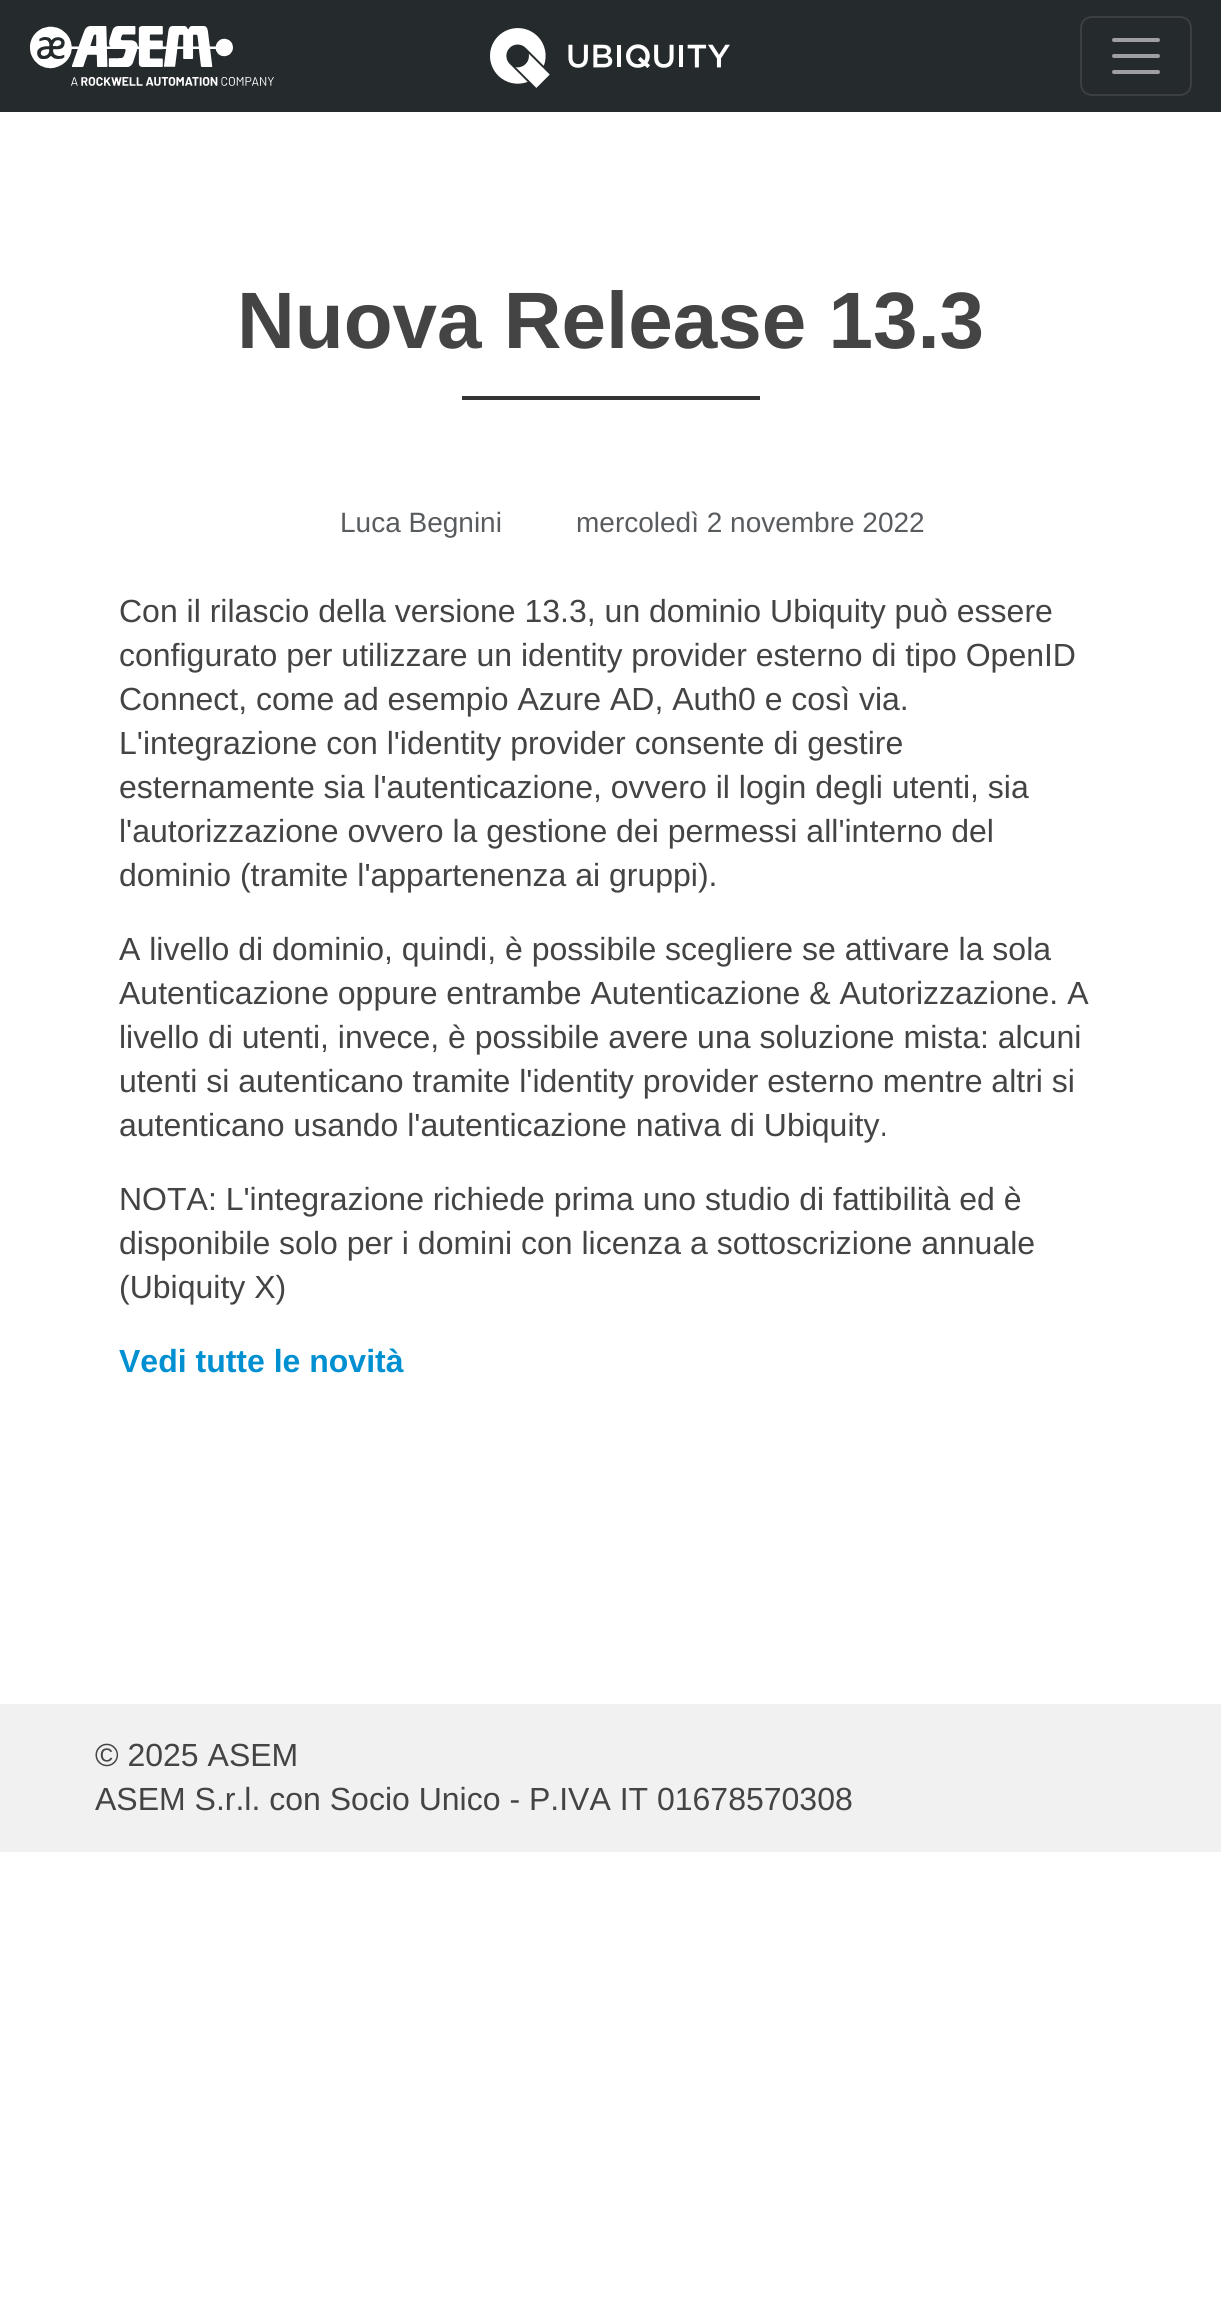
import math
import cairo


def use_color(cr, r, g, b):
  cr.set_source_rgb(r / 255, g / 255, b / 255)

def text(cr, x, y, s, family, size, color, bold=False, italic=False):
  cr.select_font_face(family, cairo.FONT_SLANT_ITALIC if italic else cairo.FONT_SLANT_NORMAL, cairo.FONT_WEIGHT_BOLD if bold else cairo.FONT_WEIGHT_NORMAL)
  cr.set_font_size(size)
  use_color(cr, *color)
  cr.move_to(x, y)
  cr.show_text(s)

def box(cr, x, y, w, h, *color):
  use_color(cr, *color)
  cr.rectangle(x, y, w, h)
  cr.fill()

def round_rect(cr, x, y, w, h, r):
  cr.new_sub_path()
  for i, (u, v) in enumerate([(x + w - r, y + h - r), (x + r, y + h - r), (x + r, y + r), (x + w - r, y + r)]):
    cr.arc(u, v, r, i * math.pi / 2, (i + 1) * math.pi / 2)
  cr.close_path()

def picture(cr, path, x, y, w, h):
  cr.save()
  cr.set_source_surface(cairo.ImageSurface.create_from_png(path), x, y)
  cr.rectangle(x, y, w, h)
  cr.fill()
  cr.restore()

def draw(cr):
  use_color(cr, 255, 255, 255)
  cr.paint()
  box(cr, 0, 0, 1221, 112, 37, 42, 45)
  picture(cr, "img_01.png", 30, 26, 244, 60)
  picture(cr, "img_02.png", 490, 28, 240, 60)
  round_rect(cr, 1081, 17, 110, 78, 11)
  use_color(cr, 59, 63, 66)
  cr.stroke()
  cr.new_path()
  cr.move_to(1114, 40)
  cr.line_to(1158, 40)
  cr.move_to(1114, 56)
  cr.line_to(1158, 56)
  cr.move_to(1114, 72)
  cr.line_to(1158, 72)
  use_color(cr, 157, 159, 161)
  cr.set_line_width(4)
  cr.set_line_cap(cairo.LINE_CAP_ROUND)
  cr.stroke()
  box(cr, 462, 396, 298, 4, 51, 51, 51)
  box(cr, 0, 1704, 1221, 148, 241, 241, 241)
  text(cr, 237, 348, "Nuova Release 13.3", "Liberation Sans", 80, (68, 68, 68), bold=True)
  text(cr, 340, 532, "Luca Begnini", "Liberation Sans", 28, (89, 92, 95))
  text(cr, 576, 532, "mercoledì 2 novembre 2022", "Liberation Sans", 28, (89, 92, 95))
  text(cr, 119, 622, "Con il rilascio della versione 13.3, un dominio Ubiquity può essere", "Liberation Sans", 32, (68, 68, 68))
  text(cr, 119, 666, "configurato per utilizzare un identity provider esterno di tipo OpenID", "Liberation Sans", 32, (68, 68, 68))
  text(cr, 119, 710, "Connect, come ad esempio Azure AD, Auth0 e così via.", "Liberation Sans", 32, (68, 68, 68))
  text(cr, 119, 754, "L'integrazione con l'identity provider consente di gestire", "Liberation Sans", 32, (68, 68, 68))
  text(cr, 119, 798, "esternamente sia l'autenticazione, ovvero il login degli utenti, sia", "Liberation Sans", 32, (68, 68, 68))
  text(cr, 119, 842, "l'autorizzazione ovvero la gestione dei permessi all'interno del", "Liberation Sans", 32, (68, 68, 68))
  text(cr, 119, 886, "dominio (tramite l'appartenenza ai gruppi).", "Liberation Sans", 32, (68, 68, 68))
  text(cr, 119, 960, "A livello di dominio, quindi, è possibile scegliere se attivare la sola", "Liberation Sans", 32, (68, 68, 68))
  text(cr, 119, 1004, "Autenticazione oppure entrambe Autenticazione & Autorizzazione. A", "Liberation Sans", 32, (68, 68, 68))
  text(cr, 119, 1048, "livello di utenti, invece, è possibile avere una soluzione mista: alcuni", "Liberation Sans", 32, (68, 68, 68))
  text(cr, 119, 1092, "utenti si autenticano tramite l'identity provider esterno mentre altri si", "Liberation Sans", 32, (68, 68, 68))
  text(cr, 119, 1136, "autenticano usando l'autenticazione nativa di Ubiquity.", "Liberation Sans", 32, (68, 68, 68))
  text(cr, 119, 1210, "NOTA: L'integrazione richiede prima uno studio di fattibilità ed è", "Liberation Sans", 32, (68, 68, 68))
  text(cr, 119, 1254, "disponibile solo per i domini con licenza a sottoscrizione annuale", "Liberation Sans", 32, (68, 68, 68))
  text(cr, 119, 1298, "(Ubiquity X)", "Liberation Sans", 32, (68, 68, 68))
  text(cr, 119, 1372, "Vedi tutte le novità", "Liberation Sans", 32, (0, 144, 210), bold=True)
  text(cr, 95, 1766, "© 2025 ASEM", "Liberation Sans", 32, (68, 68, 68))
  text(cr, 95, 1810, "ASEM S.r.l. con Socio Unico - P.IVA IT 01678570308", "Liberation Sans", 32, (68, 68, 68))


surface = cairo.ImageSurface(cairo.FORMAT_RGB24, 1221, 2310)
cr = cairo.Context(surface)
options = cairo.FontOptions()
options.set_hint_metrics(cairo.HINT_METRICS_OFF)
options.set_hint_style(cairo.HINT_STYLE_NONE)
cr.set_font_options(options)
cr.set_miter_limit(4)
draw(cr)
surface.write_to_png("out.png")
